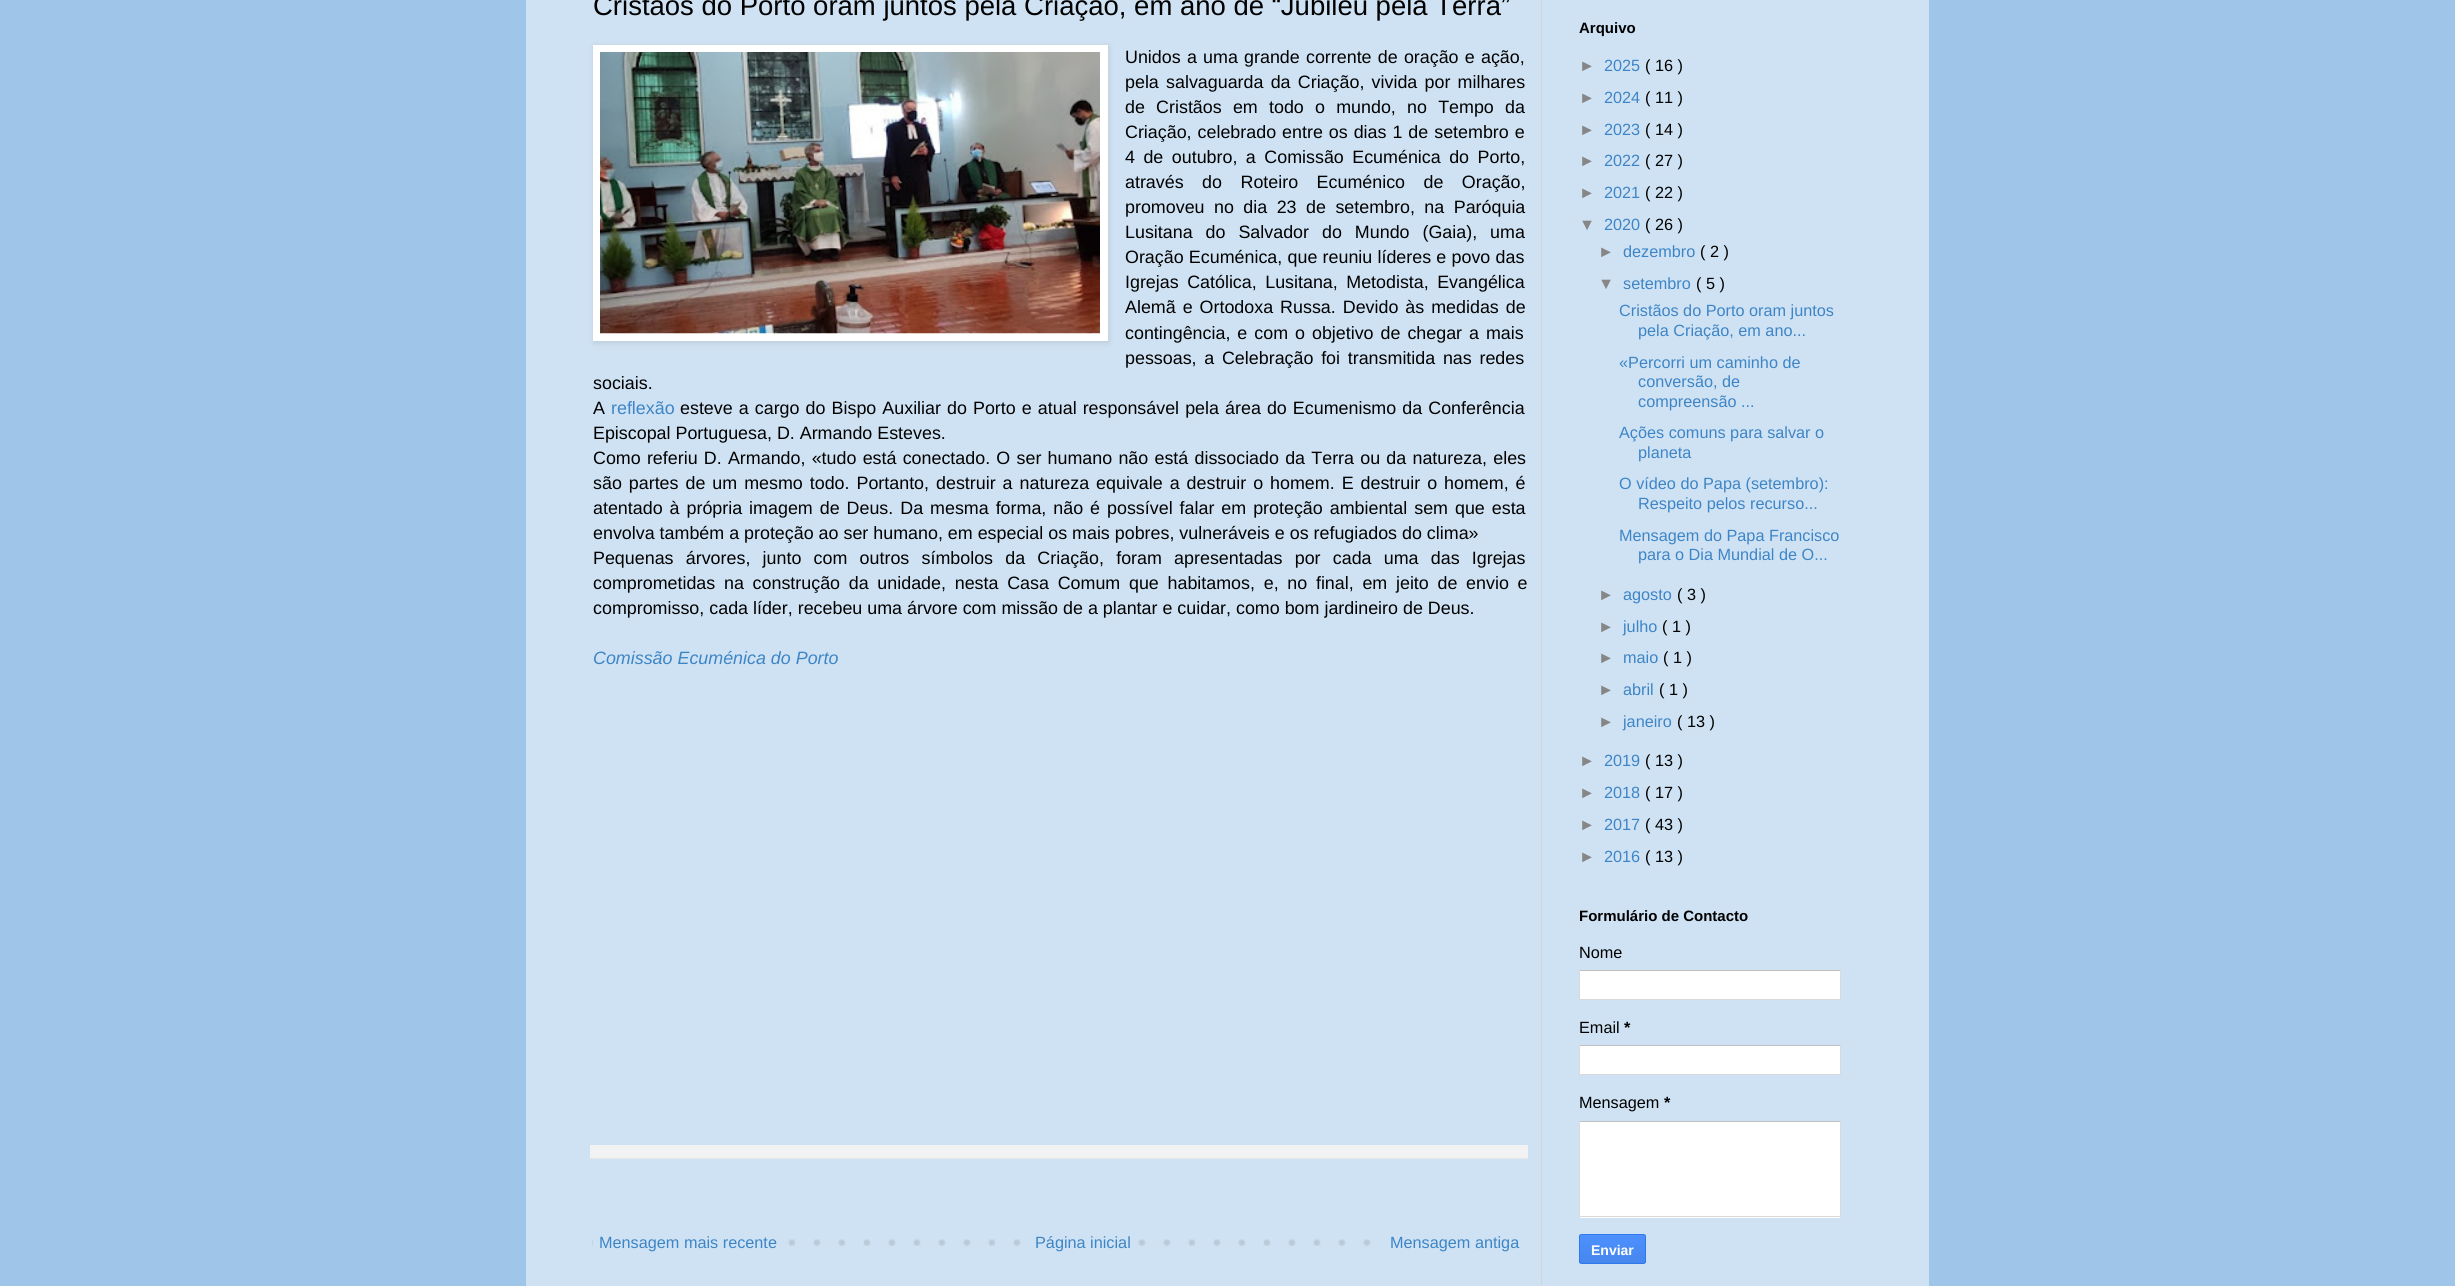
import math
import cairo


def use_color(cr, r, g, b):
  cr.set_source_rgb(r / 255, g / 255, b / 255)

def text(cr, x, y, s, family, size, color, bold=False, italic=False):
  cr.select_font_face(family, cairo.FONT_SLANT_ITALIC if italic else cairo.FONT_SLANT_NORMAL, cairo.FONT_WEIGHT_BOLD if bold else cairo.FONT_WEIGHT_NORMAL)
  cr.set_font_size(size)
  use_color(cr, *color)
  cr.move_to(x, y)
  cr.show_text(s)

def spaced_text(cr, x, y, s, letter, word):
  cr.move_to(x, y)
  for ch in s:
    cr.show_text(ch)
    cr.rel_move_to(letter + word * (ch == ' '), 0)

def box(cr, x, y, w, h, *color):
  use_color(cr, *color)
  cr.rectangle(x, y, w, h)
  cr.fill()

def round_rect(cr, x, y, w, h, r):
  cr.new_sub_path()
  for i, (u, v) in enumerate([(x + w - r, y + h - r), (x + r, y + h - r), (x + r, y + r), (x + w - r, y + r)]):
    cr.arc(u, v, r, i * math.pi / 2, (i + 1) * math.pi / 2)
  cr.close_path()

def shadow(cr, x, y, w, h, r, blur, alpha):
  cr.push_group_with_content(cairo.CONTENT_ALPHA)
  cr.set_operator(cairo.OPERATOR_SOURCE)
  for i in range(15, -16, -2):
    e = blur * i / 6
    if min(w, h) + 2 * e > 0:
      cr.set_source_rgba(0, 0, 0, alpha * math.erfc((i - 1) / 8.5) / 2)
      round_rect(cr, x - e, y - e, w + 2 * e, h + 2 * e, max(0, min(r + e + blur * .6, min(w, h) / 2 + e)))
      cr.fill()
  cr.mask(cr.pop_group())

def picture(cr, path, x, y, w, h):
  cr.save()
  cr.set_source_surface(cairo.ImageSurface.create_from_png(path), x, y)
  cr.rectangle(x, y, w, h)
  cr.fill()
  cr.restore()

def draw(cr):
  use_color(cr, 159, 197, 232)
  cr.paint()
  box(cr, 526, 0, 1403, 1286, 207, 226, 243)
  use_color(cr, 0, 0, 0)
  shadow(cr, 594, 46, 515, 297, 0, 3, 0.1)
  box(cr, 593, 45, 515, 296, 255, 255, 255)
  picture(cr, "img_01.png", 600, 52, 500, 282)
  box(cr, 590, 1145, 938, 13, 242, 242, 242)
  box(cr, 590, 1158, 938, 1, 231, 231, 231)
  picture(cr, "img_02.png", 592, 1239, 779, 7)
  box(cr, 593, 1239, 178, 7, 207, 226, 243)
  box(cr, 1038, 1239, 83, 7, 207, 226, 243)
  box(cr, 1580, 971, 260, 28, 255, 255, 255)
  box(cr, 1579, 970, 262, 1, 192, 192, 192)
  box(cr, 1840, 970, 1, 30, 217, 217, 217)
  box(cr, 1579, 999, 262, 1, 217, 217, 217)
  box(cr, 1579, 970, 1, 30, 217, 217, 217)
  box(cr, 1580, 1046, 260, 28, 255, 255, 255)
  box(cr, 1579, 1045, 262, 1, 192, 192, 192)
  box(cr, 1840, 1045, 1, 30, 217, 217, 217)
  box(cr, 1579, 1074, 262, 1, 217, 217, 217)
  box(cr, 1579, 1045, 1, 30, 217, 217, 217)
  box(cr, 1580, 1122, 260, 96, 255, 255, 255)
  box(cr, 1579, 1121, 262, 1, 192, 192, 192)
  box(cr, 1840, 1121, 1, 97, 217, 217, 217)
  box(cr, 1579, 1216, 262, 1, 217, 217, 217)
  box(cr, 1579, 1121, 1, 97, 217, 217, 217)
  cr.save()
  round_rect(cr, 1579, 1234, 67, 30, 2.5)
  cr.clip()
  gradient = cairo.LinearGradient(1613, 1235, 1613, 1263)
  gradient.add_color_stop_rgba(0, 0.302, 0.565, 0.996, 1)
  gradient.add_color_stop_rgba(1, 0.278, 0.529, 0.929, 1)
  cr.set_source(gradient)
  cr.rectangle(1579, 1235, 67, 28)
  cr.fill()
  cr.restore()
  round_rect(cr, 1579.5, 1234.5, 66, 29, 2)
  use_color(cr, 48, 121, 237)
  cr.set_line_width(1)
  cr.stroke()
  box(cr, 1541, 0, 1, 1286, 212, 212, 212)
  text(cr, 593, 15, "Cristãos do Porto oram juntos pela Criação, em ano de “Jubileu pela Terra”", "Liberation Sans", 27.5, (0, 0, 0))
  cr.set_font_size(17.88)
  spaced_text(cr, 1125, 63, "Unidos a uma grande corrente de oração e ação,", 0, 1.25)
  spaced_text(cr, 1125, 88, "pela salvaguarda da Criação, vivida por milhares", 0, 2.25)
  spaced_text(cr, 1125, 113, "de Cristãos em todo o mundo, no Tempo da", 0, 6.25)
  spaced_text(cr, 1125, 138, "Criação, celebrado entre os dias 1 de setembro e", 0, 1)
  spaced_text(cr, 1125, 163, "4 de outubro, a Comissão Ecuménica do Porto,", 0, 3.5)
  spaced_text(cr, 1125, 188, "através do Roteiro Ecuménico de Oração,", 0, 13.5)
  spaced_text(cr, 1125, 213, "promoveu no dia 23 de setembro, na Paróquia", 0, 4.5)
  spaced_text(cr, 1125, 238, "Lusitana do Salvador do Mundo (Gaia), uma", 0, 8)
  spaced_text(cr, 1125, 263, "Oração Ecuménica, que reuniu líderes e povo das", 0, 0.25)
  spaced_text(cr, 1125, 288, "Igrejas Católica, Lusitana, Metodista, Evangélica", 0, 3.5)
  spaced_text(cr, 1125, 313, "Alemã e Ortodoxa Russa. Devido às medidas de", 0, 2)
  spaced_text(cr, 1125, 339, "contingência, e com o objetivo de chegar a mais", 0, 2)
  spaced_text(cr, 1125, 364, "pessoas, a Celebração foi transmitida nas redes", 0, 2.75)
  text(cr, 593, 389, "sociais.", "Liberation Sans", 17.88, (0, 0, 0))
  text(cr, 593, 414, "A", "Liberation Sans", 17.88, (0, 0, 0))
  text(cr, 611, 414, "reflexão", "Liberation Sans", 17.88, (61, 133, 198))
  use_color(cr, 0, 0, 0)
  spaced_text(cr, 680, 414, "esteve a cargo do Bispo Auxiliar do Porto e atual responsável pela área do Ecumenismo da Conferência", 0, 1.1)
  text(cr, 593, 439, "Episcopal Portuguesa, D. Armando Esteves.", "Liberation Sans", 17.88, (0, 0, 0))
  spaced_text(cr, 593, 464, "Como referiu D. Armando, «tudo está conectado. O ser humano não está dissociado da Terra ou da natureza, eles", 0, 1.25)
  spaced_text(cr, 593, 489, "são partes de um mesmo todo. Portanto, destruir a natureza equivale a destruir o homem. E destruir o homem, é", 0, 2)
  spaced_text(cr, 593, 514, "atentado à própria imagem de Deus. Da mesma forma, não é possível falar em proteção ambiental sem que esta", 0, 2)
  text(cr, 593, 539, "envolva também a proteção ao ser humano, em especial os mais pobres, vulneráveis e os refugiados do clima»", "Liberation Sans", 17.88, (0, 0, 0))
  spaced_text(cr, 593, 564, "Pequenas árvores, junto com outros símbolos da Criação, foram apresentadas por cada uma das Igrejas", 0, 7.25)
  spaced_text(cr, 593, 589, "comprometidas na construção da unidade, nesta Casa Comum que habitamos, e, no final, em jeito de envio e", 0, 3.75)
  text(cr, 593, 614, "compromisso, cada líder, recebeu uma árvore com missão de a plantar e cuidar, como bom jardineiro de Deus.", "Liberation Sans", 17.88, (0, 0, 0))
  text(cr, 593, 664, "Comissão Ecuménica do Porto", "Liberation Sans", 17.88, (61, 133, 198), italic=True)
  text(cr, 599, 1248, "Mensagem mais recente", "Liberation Sans", 16.25, (61, 133, 198))
  text(cr, 1035, 1248, "Página inicial", "Liberation Sans", 16.25, (61, 133, 198))
  text(cr, 1390, 1248, "Mensagem antiga", "Liberation Sans", 16.25, (61, 133, 198))
  text(cr, 1579, 33, "Arquivo", "Liberation Sans", 15, (0, 0, 0), bold=True)
  text(cr, 1579, 71, "►", "Liberation Sans", 16.25, (134, 134, 134))
  text(cr, 1604, 71, "2025", "Liberation Sans", 16.25, (61, 133, 198))
  text(cr, 1645, 71, "( 16 )", "Liberation Sans", 16.25, (0, 0, 0))
  text(cr, 1579, 103, "►", "Liberation Sans", 16.25, (134, 134, 134))
  text(cr, 1604, 103, "2024", "Liberation Sans", 16.25, (61, 133, 198))
  text(cr, 1645, 103, "( 11 )", "Liberation Sans", 16.25, (0, 0, 0))
  text(cr, 1579, 135, "►", "Liberation Sans", 16.25, (134, 134, 134))
  text(cr, 1604, 135, "2023", "Liberation Sans", 16.25, (61, 133, 198))
  text(cr, 1645, 135, "( 14 )", "Liberation Sans", 16.25, (0, 0, 0))
  text(cr, 1579, 166, "►", "Liberation Sans", 16.25, (134, 134, 134))
  text(cr, 1604, 166, "2022", "Liberation Sans", 16.25, (61, 133, 198))
  text(cr, 1645, 166, "( 27 )", "Liberation Sans", 16.25, (0, 0, 0))
  text(cr, 1579, 198, "►", "Liberation Sans", 16.25, (134, 134, 134))
  text(cr, 1604, 198, "2021", "Liberation Sans", 16.25, (61, 133, 198))
  text(cr, 1645, 198, "( 22 )", "Liberation Sans", 16.25, (0, 0, 0))
  text(cr, 1579, 230, "▼", "Liberation Sans", 16.25, (134, 134, 134))
  text(cr, 1604, 230, "2020", "Liberation Sans", 16.25, (61, 133, 198))
  text(cr, 1645, 230, "( 26 )", "Liberation Sans", 16.25, (0, 0, 0))
  text(cr, 1598, 257, "►", "Liberation Sans", 16.25, (134, 134, 134))
  text(cr, 1623, 257, "dezembro", "Liberation Sans", 16.25, (61, 133, 198))
  text(cr, 1700, 257, "( 2 )", "Liberation Sans", 16.25, (0, 0, 0))
  text(cr, 1598, 289, "▼", "Liberation Sans", 16.25, (134, 134, 134))
  text(cr, 1623, 289, "setembro", "Liberation Sans", 16.25, (61, 133, 198))
  text(cr, 1696, 289, "( 5 )", "Liberation Sans", 16.25, (0, 0, 0))
  text(cr, 1619, 316, "Cristãos do Porto oram juntos", "Liberation Sans", 16.25, (61, 133, 198))
  text(cr, 1638, 336, "pela Criação, em ano...", "Liberation Sans", 16.25, (61, 133, 198))
  text(cr, 1619, 368, "«Percorri um caminho de", "Liberation Sans", 16.25, (61, 133, 198))
  text(cr, 1638, 387, "conversão, de", "Liberation Sans", 16.25, (61, 133, 198))
  text(cr, 1638, 407, "compreensão ...", "Liberation Sans", 16.25, (61, 133, 198))
  text(cr, 1619, 438, "Ações comuns para salvar o", "Liberation Sans", 16.25, (61, 133, 198))
  text(cr, 1638, 458, "planeta", "Liberation Sans", 16.25, (61, 133, 198))
  text(cr, 1619, 489, "O vídeo do Papa (setembro):", "Liberation Sans", 16.25, (61, 133, 198))
  text(cr, 1638, 509, "Respeito pelos recurso...", "Liberation Sans", 16.25, (61, 133, 198))
  text(cr, 1619, 541, "Mensagem do Papa Francisco", "Liberation Sans", 16.25, (61, 133, 198))
  text(cr, 1638, 560, "para o Dia Mundial de O...", "Liberation Sans", 16.25, (61, 133, 198))
  text(cr, 1598, 600, "►", "Liberation Sans", 16.25, (134, 134, 134))
  text(cr, 1623, 600, "agosto", "Liberation Sans", 16.25, (61, 133, 198))
  text(cr, 1677, 600, "( 3 )", "Liberation Sans", 16.25, (0, 0, 0))
  text(cr, 1598, 632, "►", "Liberation Sans", 16.25, (134, 134, 134))
  text(cr, 1623, 632, "julho", "Liberation Sans", 16.25, (61, 133, 198))
  text(cr, 1662, 632, "( 1 )", "Liberation Sans", 16.25, (0, 0, 0))
  text(cr, 1598, 663, "►", "Liberation Sans", 16.25, (134, 134, 134))
  text(cr, 1623, 663, "maio", "Liberation Sans", 16.25, (61, 133, 198))
  text(cr, 1663, 663, "( 1 )", "Liberation Sans", 16.25, (0, 0, 0))
  text(cr, 1598, 695, "►", "Liberation Sans", 16.25, (134, 134, 134))
  text(cr, 1623, 695, "abril", "Liberation Sans", 16.25, (61, 133, 198))
  text(cr, 1659, 695, "( 1 )", "Liberation Sans", 16.25, (0, 0, 0))
  text(cr, 1598, 727, "►", "Liberation Sans", 16.25, (134, 134, 134))
  text(cr, 1623, 727, "janeiro", "Liberation Sans", 16.25, (61, 133, 198))
  text(cr, 1677, 727, "( 13 )", "Liberation Sans", 16.25, (0, 0, 0))
  text(cr, 1579, 766, "►", "Liberation Sans", 16.25, (134, 134, 134))
  text(cr, 1604, 766, "2019", "Liberation Sans", 16.25, (61, 133, 198))
  text(cr, 1645, 766, "( 13 )", "Liberation Sans", 16.25, (0, 0, 0))
  text(cr, 1579, 798, "►", "Liberation Sans", 16.25, (134, 134, 134))
  text(cr, 1604, 798, "2018", "Liberation Sans", 16.25, (61, 133, 198))
  text(cr, 1645, 798, "( 17 )", "Liberation Sans", 16.25, (0, 0, 0))
  text(cr, 1579, 830, "►", "Liberation Sans", 16.25, (134, 134, 134))
  text(cr, 1604, 830, "2017", "Liberation Sans", 16.25, (61, 133, 198))
  text(cr, 1645, 830, "( 43 )", "Liberation Sans", 16.25, (0, 0, 0))
  text(cr, 1579, 862, "►", "Liberation Sans", 16.25, (134, 134, 134))
  text(cr, 1604, 862, "2016", "Liberation Sans", 16.25, (61, 133, 198))
  text(cr, 1645, 862, "( 13 )", "Liberation Sans", 16.25, (0, 0, 0))
  text(cr, 1579, 921, "Formulário de Contacto", "Liberation Sans", 15, (0, 0, 0), bold=True)
  text(cr, 1579, 958, "Nome", "Liberation Sans", 16.25, (0, 0, 0))
  text(cr, 1579, 1033, "Email", "Liberation Sans", 16.25, (0, 0, 0))
  text(cr, 1624, 1033, "*", "Liberation Sans", 16.25, (0, 0, 0), bold=True)
  text(cr, 1579, 1108, "Mensagem", "Liberation Sans", 16.25, (0, 0, 0))
  text(cr, 1664, 1108, "*", "Liberation Sans", 16.25, (0, 0, 0), bold=True)
  text(cr, 1591, 1255, "Enviar", "Liberation Sans", 14, (255, 255, 255), bold=True)


surface = cairo.ImageSurface(cairo.FORMAT_RGB24, 2455, 1286)
cr = cairo.Context(surface)
options = cairo.FontOptions()
options.set_hint_metrics(cairo.HINT_METRICS_OFF)
options.set_hint_style(cairo.HINT_STYLE_NONE)
cr.set_font_options(options)
cr.set_miter_limit(4)
draw(cr)
surface.write_to_png("out.png")
